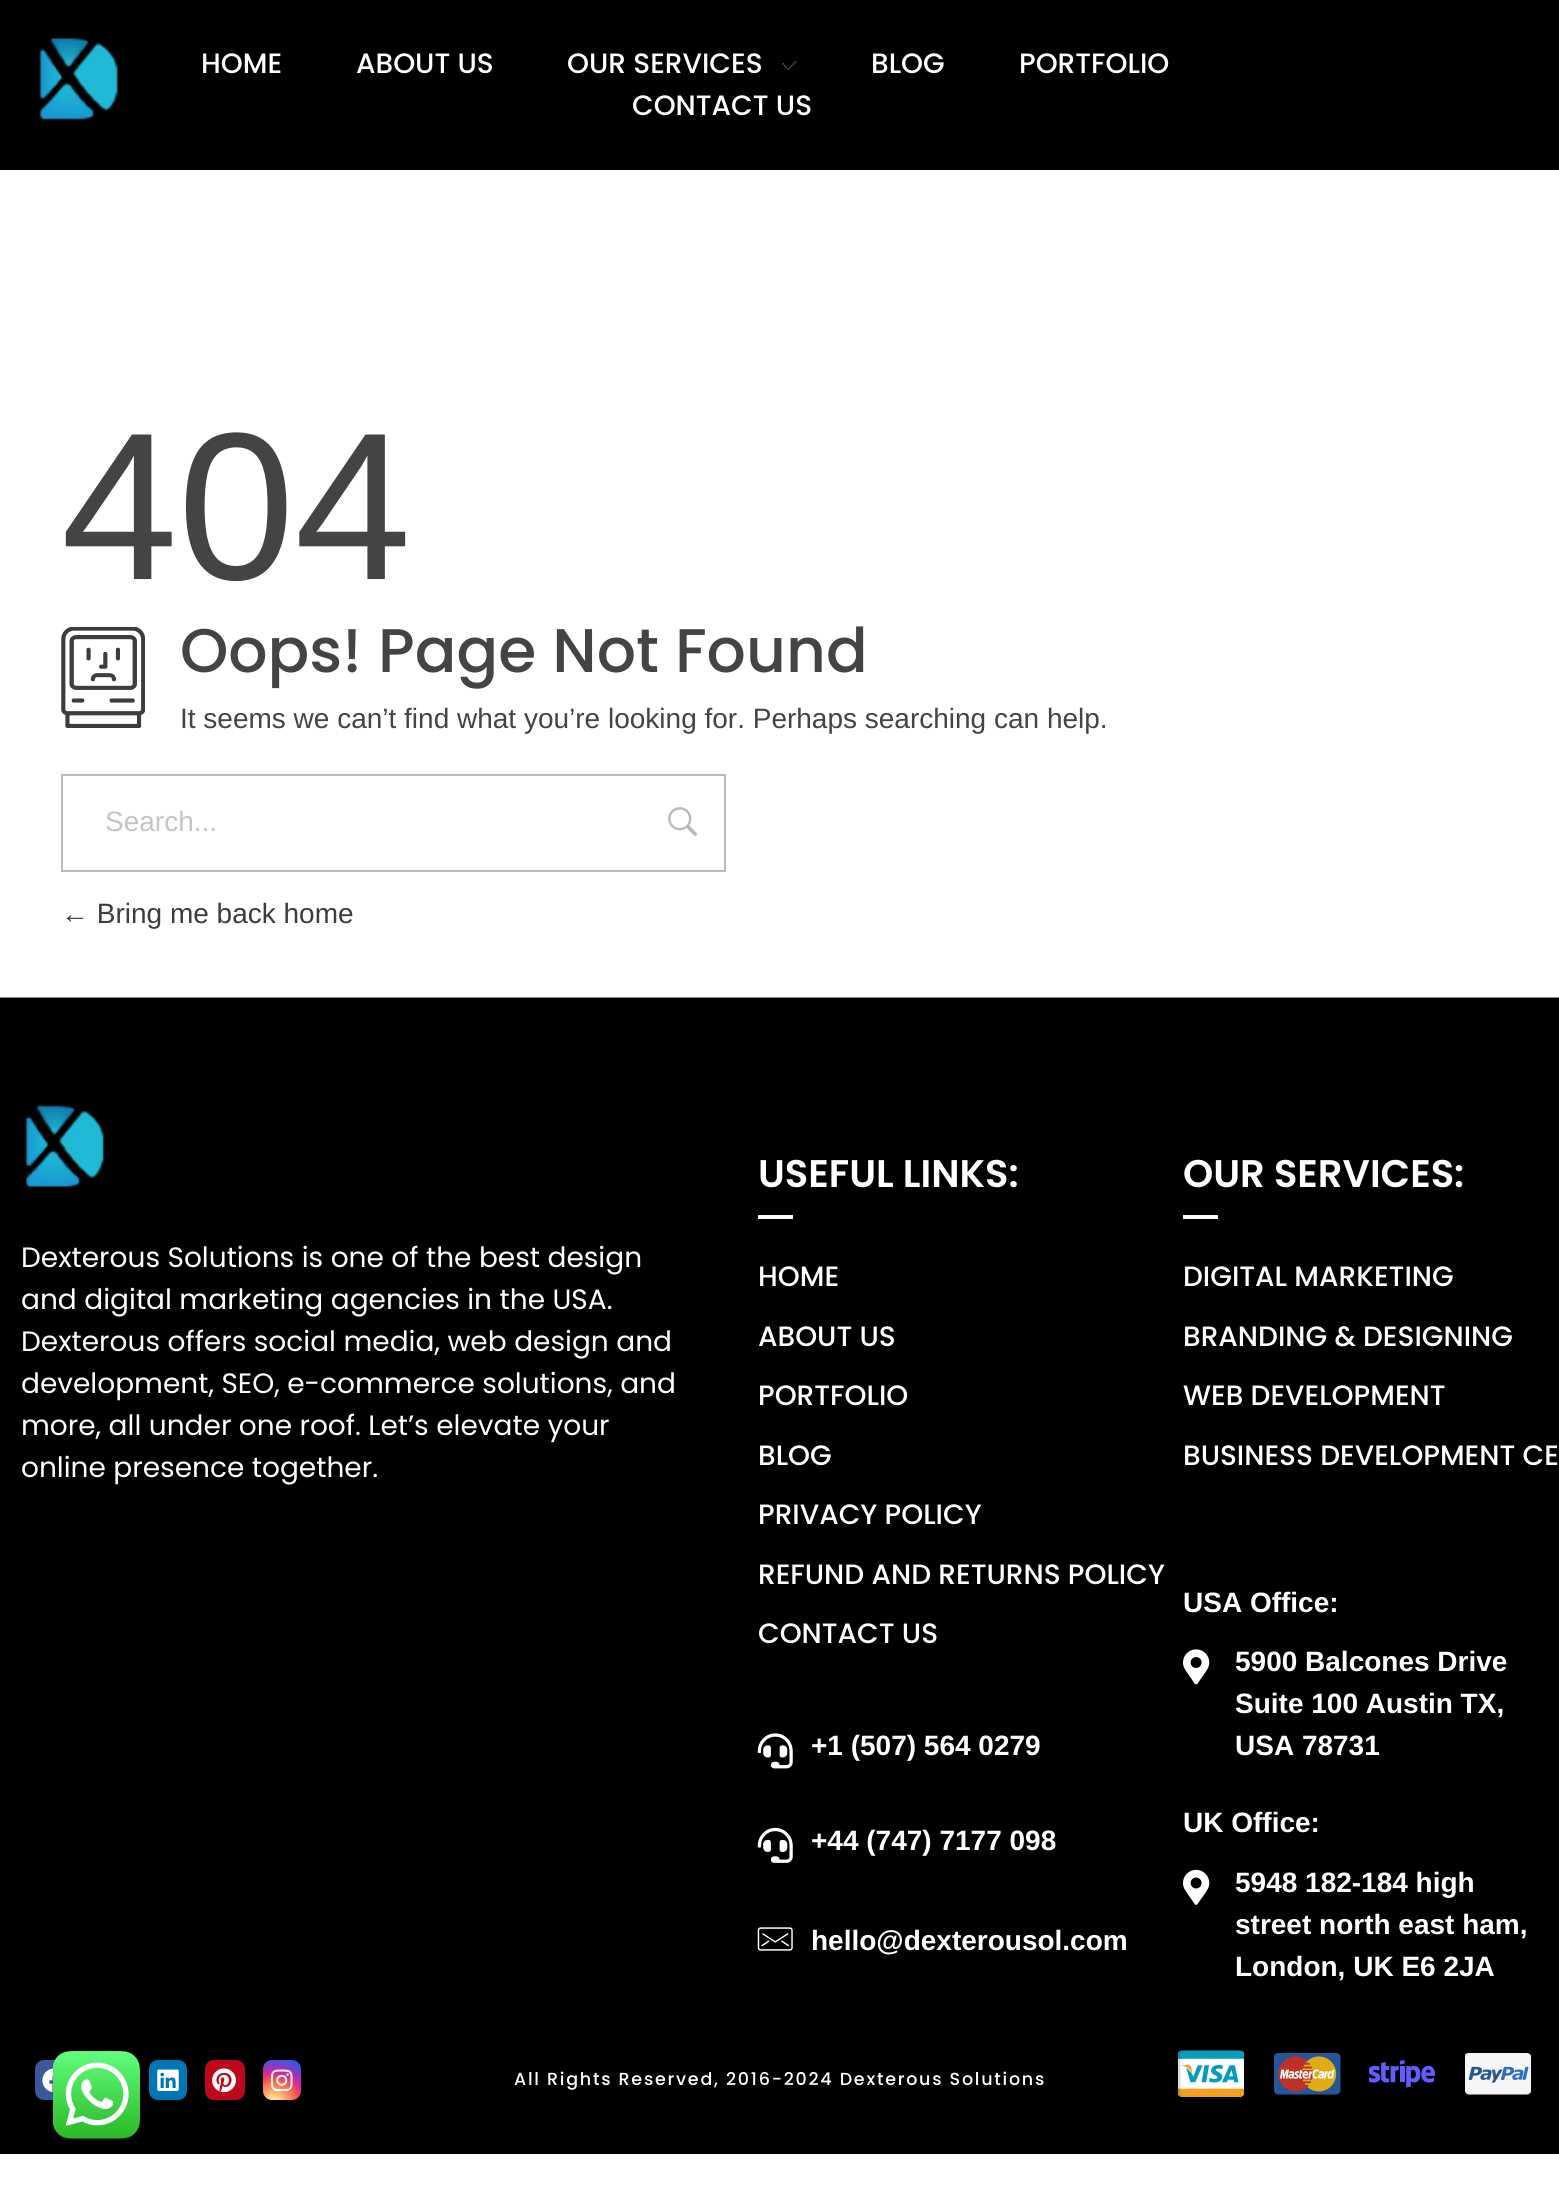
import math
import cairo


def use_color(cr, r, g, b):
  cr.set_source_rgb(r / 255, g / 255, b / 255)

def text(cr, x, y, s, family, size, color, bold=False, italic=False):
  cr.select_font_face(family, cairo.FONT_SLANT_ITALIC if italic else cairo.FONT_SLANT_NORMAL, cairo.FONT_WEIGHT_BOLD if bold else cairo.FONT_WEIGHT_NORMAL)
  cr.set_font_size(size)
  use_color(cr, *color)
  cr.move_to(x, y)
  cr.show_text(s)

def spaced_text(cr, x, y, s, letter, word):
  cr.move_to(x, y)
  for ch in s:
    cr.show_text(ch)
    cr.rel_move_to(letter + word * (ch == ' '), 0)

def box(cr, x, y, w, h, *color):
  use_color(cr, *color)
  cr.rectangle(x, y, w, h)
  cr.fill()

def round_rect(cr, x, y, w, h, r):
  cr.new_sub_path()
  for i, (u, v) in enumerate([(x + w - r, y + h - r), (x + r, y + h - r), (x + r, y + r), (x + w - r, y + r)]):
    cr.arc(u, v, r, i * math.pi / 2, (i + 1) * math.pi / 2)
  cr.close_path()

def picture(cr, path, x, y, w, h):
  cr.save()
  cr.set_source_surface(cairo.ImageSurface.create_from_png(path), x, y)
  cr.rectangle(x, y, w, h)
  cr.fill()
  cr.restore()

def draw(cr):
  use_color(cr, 255, 255, 255)
  cr.paint()
  box(cr, 0, 0, 1559, 170, 0, 0, 0)
  picture(cr, "img_01.png", 39, 38, 79, 82)
  picture(cr, "img_02.png", 782, 61, 15, 9)
  picture(cr, "img_03.png", 61, 627, 84, 101)
  cr.rectangle(62, 775, 663, 96)
  use_color(cr, 187, 187, 187)
  cr.stroke()
  picture(cr, "img_04.png", 668, 807, 30, 30)
  box(cr, 0, 998, 1559, 1156, 0, 0, 0)
  box(cr, 0, 997, 1559, 1, 128, 128, 128)
  picture(cr, "img_05.png", 25, 1105, 79, 82)
  box(cr, 758, 1215, 35, 4, 255, 252, 252)
  picture(cr, "img_06.png", 757, 1733, 36, 36)
  picture(cr, "img_07.png", 757, 1827, 36, 36)
  picture(cr, "img_08.png", 757, 1927, 36, 24)
  box(cr, 1183, 1215, 35, 4, 255, 252, 252)
  picture(cr, "img_09.png", 1183, 1649, 27, 36)
  picture(cr, "img_10.png", 1183, 1869, 27, 36)
  use_color(cr, 59, 89, 152)
  round_rect(cr, 35, 2060, 39, 40, 9)
  cr.fill()
  picture(cr, "img_11.png", 42, 2068, 11, 24)
  use_color(cr, 0, 119, 181)
  round_rect(cr, 149, 2060, 38, 40, 9)
  cr.fill()
  picture(cr, "img_12.png", 157, 2069, 22, 22)
  use_color(cr, 189, 8, 28)
  round_rect(cr, 205, 2060, 40, 40, 9)
  cr.fill()
  picture(cr, "img_13.png", 212, 2068, 24, 25)
  gradient = cairo.RadialGradient(274, 2103, 0, 274, 2103, 51)
  gradient.add_color_stop_rgba(0, 0.992, 0.957, 0.592, 1)
  gradient.add_color_stop_rgba(0.05, 0.992, 0.957, 0.592, 1)
  gradient.add_color_stop_rgba(0.45, 0.992, 0.349, 0.286, 1)
  gradient.add_color_stop_rgba(0.6, 0.839, 0.141, 0.624, 1)
  gradient.add_color_stop_rgba(0.9, 0.157, 0.353, 0.922, 1)
  cr.set_source(gradient)
  round_rect(cr, 263, 2060, 38, 40, 9)
  cr.fill()
  picture(cr, "img_14.png", 271, 2069, 22, 22)
  picture(cr, "img_15.png", 1178, 2050, 66, 47)
  picture(cr, "img_16.png", 1274, 2053, 67, 42)
  picture(cr, "img_17.png", 1369, 2060, 66, 28)
  picture(cr, "img_18.png", 1465, 2053, 66, 42)
  picture(cr, "img_19.png", 53, 2051, 87, 88)
  text(cr, 201, 73, "HOME", "Poppins Medium", 28, (255, 255, 255))
  text(cr, 356, 73, "ABOUT US", "Poppins Medium", 28, (255, 255, 255))
  text(cr, 567, 73, "OUR SERVICES", "Poppins Medium", 28, (255, 255, 255))
  text(cr, 871, 73, "BLOG", "Poppins Medium", 28, (255, 255, 255))
  text(cr, 1019, 73, "PORTFOLIO", "Poppins Medium", 28, (255, 255, 255))
  text(cr, 632, 115, "CONTACT US", "Poppins Medium", 28, (255, 255, 255))
  text(cr, 61, 579, "404", "Liberation Sans", 210, (68, 68, 68))
  text(cr, 180, 672, "Oops! Page Not Found", "Poppins Medium", 61.6, (68, 68, 68))
  text(cr, 180, 728, "It seems we can’t find what you’re looking for. Perhaps searching can help.", "Liberation Sans", 28, (68, 68, 68))
  text(cr, 105, 831, "Search...", "Liberation Sans", 28, (197, 197, 197))
  text(cr, 61, 923, "← Bring me back home", "Liberation Sans", 28, (61, 61, 61))
  text(cr, 21, 1267, "Dexterous Solutions is one of the best design", "Poppins", 28, (255, 255, 255))
  text(cr, 21, 1309, "and digital marketing agencies in the USA.", "Poppins", 28, (255, 255, 255))
  text(cr, 21, 1351, "Dexterous offers social media, web design and", "Poppins", 28, (255, 255, 255))
  text(cr, 21, 1393, "development, SEO, e-commerce solutions, and", "Poppins", 28, (255, 255, 255))
  text(cr, 21, 1435, "more, all under one roof. Let’s elevate your", "Poppins", 28, (255, 255, 255))
  text(cr, 21, 1477, "online presence together.", "Poppins", 28, (255, 255, 255))
  text(cr, 758, 1187, "USEFUL LINKS:", "Poppins SemiBold", 38.5, (255, 255, 255))
  text(cr, 758, 1286, "HOME", "Poppins Medium", 28, (255, 255, 255))
  text(cr, 758, 1346, "ABOUT US", "Poppins Medium", 28, (255, 255, 255))
  text(cr, 758, 1405, "PORTFOLIO", "Poppins Medium", 28, (255, 255, 255))
  text(cr, 758, 1465, "BLOG", "Poppins Medium", 28, (255, 255, 255))
  text(cr, 758, 1524, "PRIVACY POLICY", "Poppins Medium", 28, (255, 255, 255))
  text(cr, 758, 1584, "REFUND AND RETURNS POLICY", "Poppins Medium", 28, (255, 255, 255))
  text(cr, 758, 1643, "CONTACT US", "Poppins Medium", 28, (255, 255, 255))
  text(cr, 811, 1755, "+1 (507) 564 0279", "Liberation Sans", 28, (255, 255, 255), bold=True)
  text(cr, 811, 1850, "+44 (747) 7177 098", "Liberation Sans", 28, (255, 255, 255), bold=True)
  text(cr, 811, 1950, "hello@dexterousol.com", "Liberation Sans", 28, (255, 255, 255), bold=True)
  text(cr, 1183, 1187, "OUR SERVICES:", "Poppins SemiBold", 38.5, (255, 255, 255))
  text(cr, 1183, 1286, "DIGITAL MARKETING", "Poppins Medium", 28, (255, 255, 255))
  text(cr, 1183, 1346, "BRANDING & DESIGNING", "Poppins Medium", 28, (255, 255, 255))
  text(cr, 1183, 1405, "WEB DEVELOPMENT", "Poppins Medium", 28, (255, 255, 255))
  text(cr, 1183, 1465, "BUSINESS DEVELOPMENT CE", "Poppins Medium", 28, (255, 255, 255))
  text(cr, 1183, 1612, "USA Office:", "Liberation Sans", 28, (255, 255, 255), bold=True)
  text(cr, 1235, 1671, "5900 Balcones Drive", "Liberation Sans", 28, (255, 255, 255), bold=True)
  text(cr, 1235, 1713, "Suite 100 Austin TX,", "Liberation Sans", 28, (255, 255, 255), bold=True)
  text(cr, 1235, 1755, "USA 78731", "Liberation Sans", 28, (255, 255, 255), bold=True)
  text(cr, 1183, 1832, "UK Office:", "Liberation Sans", 28, (255, 255, 255), bold=True)
  text(cr, 1235, 1892, "5948 182-184 high", "Liberation Sans", 28, (255, 255, 255), bold=True)
  text(cr, 1235, 1934, "street north east ham,", "Liberation Sans", 28, (255, 255, 255), bold=True)
  text(cr, 1235, 1976, "London, UK E6 2JA", "Liberation Sans", 28, (255, 255, 255), bold=True)
  cr.select_font_face("Poppins Medium")
  cr.set_font_size(17.5)
  spaced_text(cr, 514, 2085, "All Rights Reserved, 2016-2024 Dexterous Solutions", 1.75, 0)


surface = cairo.ImageSurface(cairo.FORMAT_RGB24, 1559, 2190)
cr = cairo.Context(surface)
options = cairo.FontOptions()
options.set_hint_metrics(cairo.HINT_METRICS_OFF)
options.set_hint_style(cairo.HINT_STYLE_NONE)
cr.set_font_options(options)
cr.set_miter_limit(4)
draw(cr)
surface.write_to_png("out.png")
